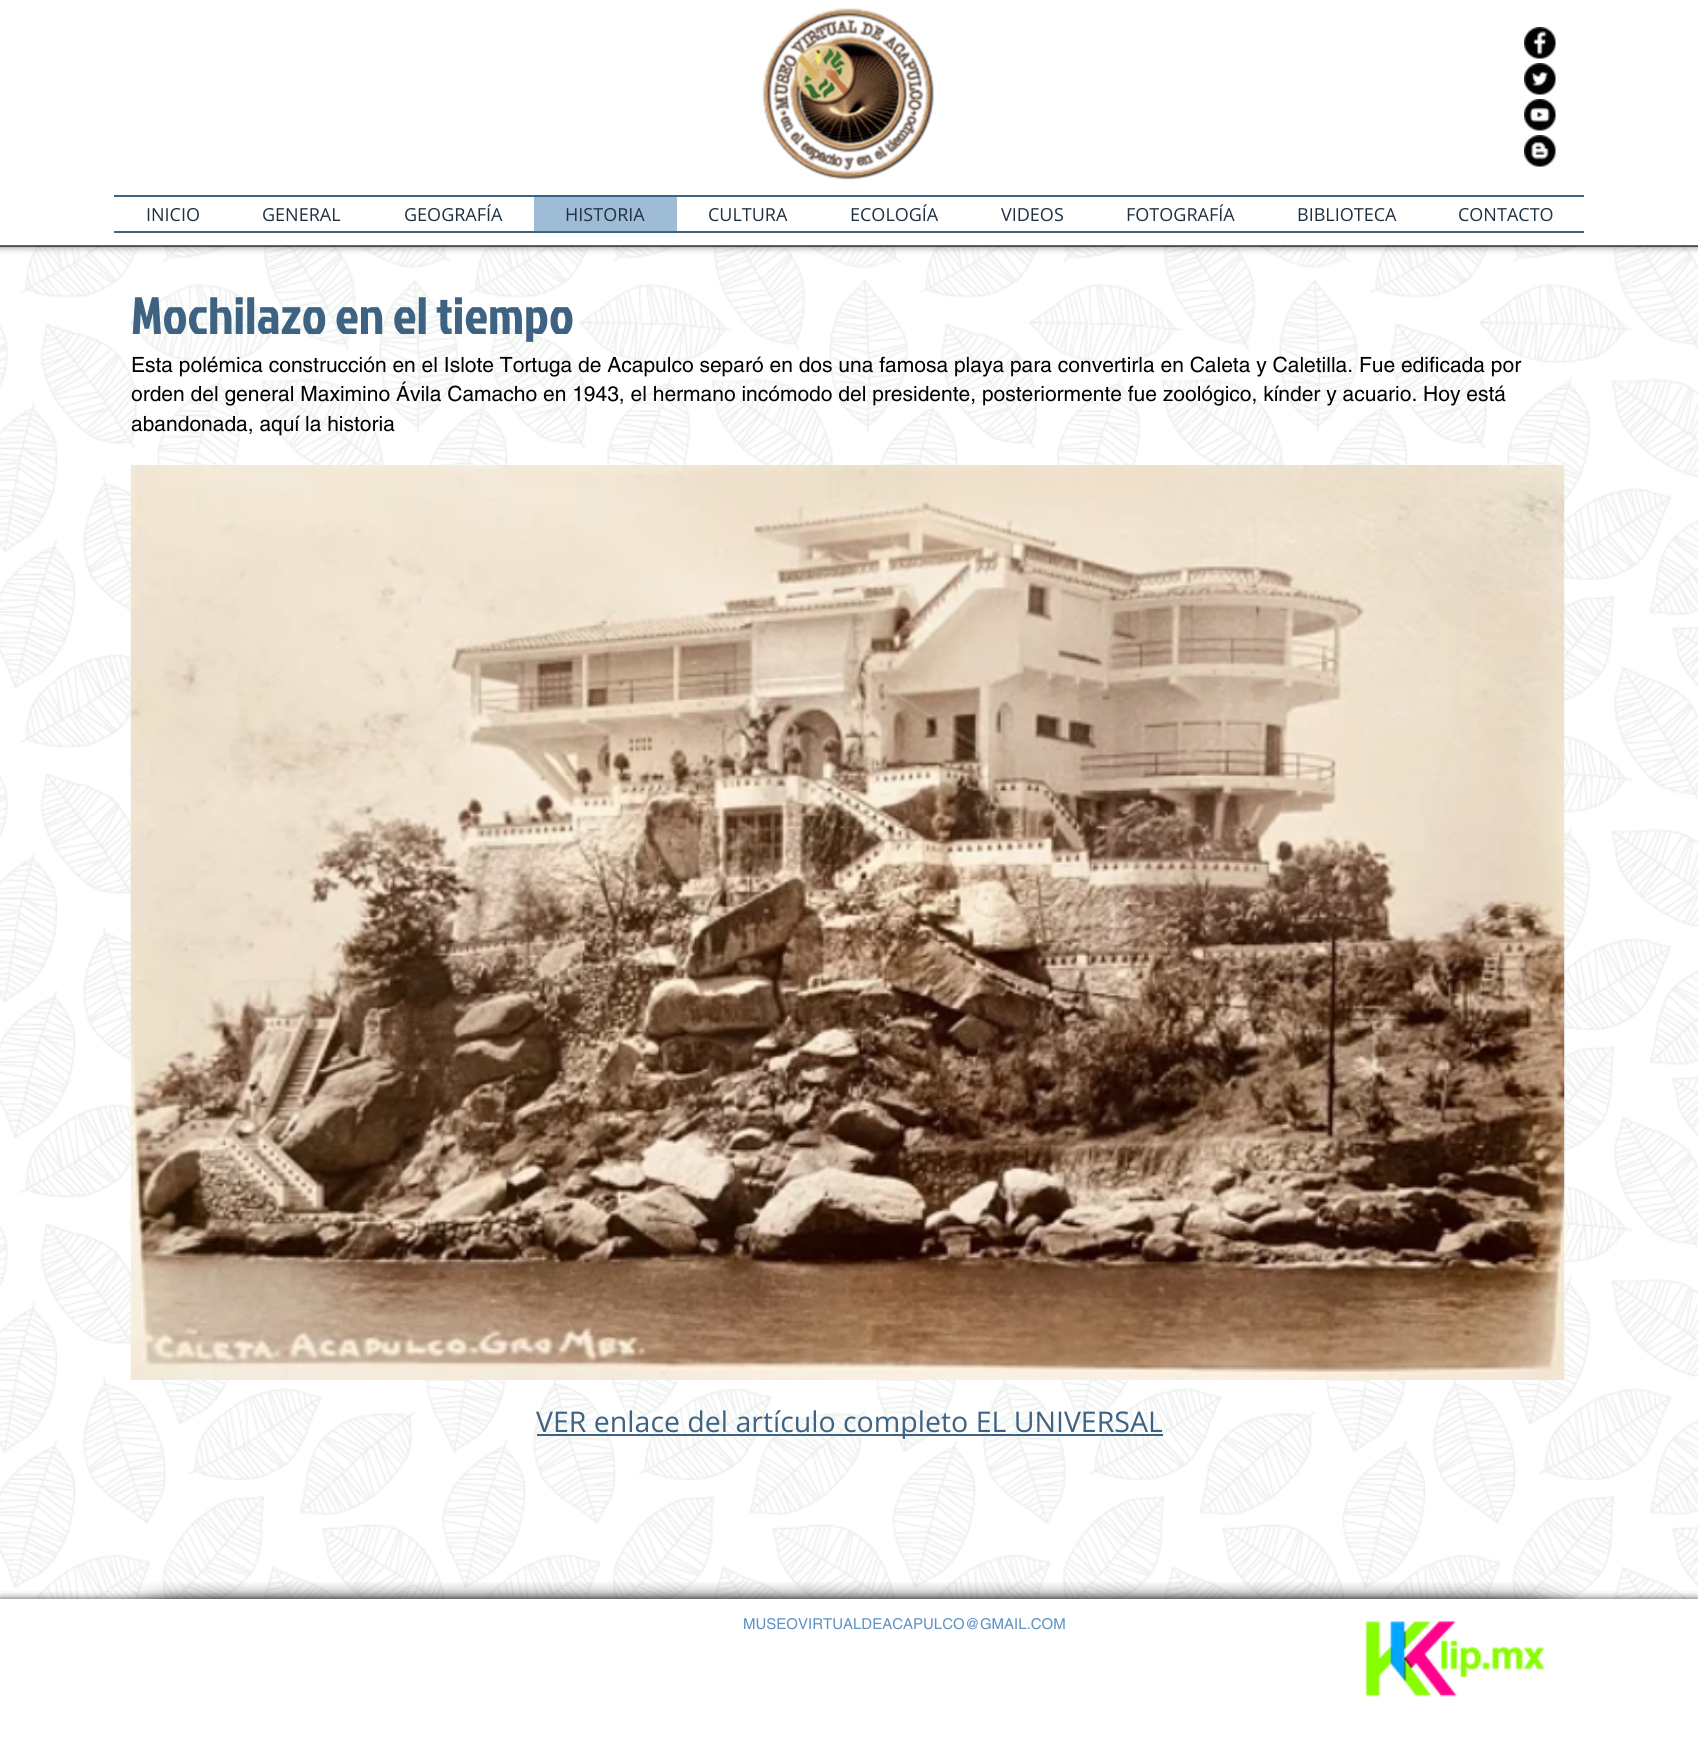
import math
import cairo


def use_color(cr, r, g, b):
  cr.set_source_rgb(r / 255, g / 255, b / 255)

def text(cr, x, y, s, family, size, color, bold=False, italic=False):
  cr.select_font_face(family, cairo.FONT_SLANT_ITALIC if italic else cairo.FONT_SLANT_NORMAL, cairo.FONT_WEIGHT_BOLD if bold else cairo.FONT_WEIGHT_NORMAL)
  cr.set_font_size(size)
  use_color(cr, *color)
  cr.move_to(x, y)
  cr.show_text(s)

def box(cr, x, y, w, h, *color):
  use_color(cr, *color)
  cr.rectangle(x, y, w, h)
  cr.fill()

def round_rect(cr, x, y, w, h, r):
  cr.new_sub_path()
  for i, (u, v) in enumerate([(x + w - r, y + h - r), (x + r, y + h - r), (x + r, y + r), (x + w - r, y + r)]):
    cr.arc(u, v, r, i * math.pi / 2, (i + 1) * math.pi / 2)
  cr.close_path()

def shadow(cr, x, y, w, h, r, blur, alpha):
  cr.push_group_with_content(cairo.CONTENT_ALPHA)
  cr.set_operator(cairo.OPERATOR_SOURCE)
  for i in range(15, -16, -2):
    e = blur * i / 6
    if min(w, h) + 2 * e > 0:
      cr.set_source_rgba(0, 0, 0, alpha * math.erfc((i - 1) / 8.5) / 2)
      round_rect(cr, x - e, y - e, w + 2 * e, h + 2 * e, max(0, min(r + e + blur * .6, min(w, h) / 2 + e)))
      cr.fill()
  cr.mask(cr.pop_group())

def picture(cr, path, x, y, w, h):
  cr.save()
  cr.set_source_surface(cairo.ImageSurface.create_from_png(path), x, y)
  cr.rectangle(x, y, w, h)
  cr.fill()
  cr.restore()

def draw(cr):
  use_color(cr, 255, 255, 255)
  cr.paint()
  picture(cr, "img_06.png", 0, 246, 1698, 1353)
  use_color(cr, 0, 0, 0)
  shadow(cr, 0, 0, 1698, 246, 0, 4, 0.6)
  box(cr, 0, 0, 1698, 246, 255, 255, 255)
  cr.set_source_rgba(0, 0, 0, 0.6)
  cr.rectangle(0, 245, 1698, 2)
  cr.fill()
  picture(cr, "img_01.png", 762, 8, 172, 172)
  picture(cr, "img_02.png", 1524, 27, 32, 32)
  picture(cr, "img_03.png", 1524, 63, 32, 32)
  picture(cr, "img_04.png", 1524, 99, 32, 32)
  picture(cr, "img_05.png", 1524, 135, 32, 32)
  box(cr, 114, 195, 1470, 2, 62, 98, 130)
  box(cr, 114, 231, 1470, 2, 62, 98, 130)
  box(cr, 534, 197, 143, 34, 159, 188, 215)
  picture(cr, "img_07.png", 130, 465, 1435, 915)
  box(cr, 537, 1434, 626, 2, 62, 98, 130)
  cr.save()
  cr.rectangle(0, 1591, 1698, 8)
  cr.clip()
  use_color(cr, 0, 0, 0)
  shadow(cr, 0, 1599, 1698, 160, 0, 4, 0.7)
  cr.restore()
  picture(cr, "img_08.png", 119, 1582, 145, 17)
  picture(cr, "img_09.png", 264, 1582, 1170, 17)
  picture(cr, "img_10.png", 1434, 1582, 145, 17)
  picture(cr, "img_11.png", 1364, 1620, 182, 77)
  text(cr, 146, 221, "INICIO", "Open Sans", 18, (31, 49, 65))
  text(cr, 262, 221, "GENERAL", "Open Sans", 18, (31, 49, 65))
  text(cr, 404, 221, "GEOGRAFÍA", "Open Sans", 18, (31, 49, 65))
  text(cr, 565, 221, "HISTORIA", "Open Sans", 18, (31, 49, 65))
  text(cr, 708, 221, "CULTURA", "Open Sans", 18, (31, 49, 65))
  text(cr, 850, 221, "ECOLOGÍA", "Open Sans", 18, (31, 49, 65))
  text(cr, 1001, 221, "VIDEOS", "Open Sans", 18, (31, 49, 65))
  text(cr, 1126, 221, "FOTOGRAFÍA", "Open Sans", 18, (31, 49, 65))
  text(cr, 1297, 221, "BIBLIOTECA", "Open Sans", 18, (31, 49, 65))
  text(cr, 1458, 221, "CONTACTO", "Open Sans", 18, (31, 49, 65))
  text(cr, 131, 334, "Mochilazo en el tiempo", "Jockey One", 52.5, (62, 98, 130))
  text(cr, 131, 372, "Esta polémica construcción en el Islote Tortuga de Acapulco separó en dos una famosa playa para convertirla en Caleta y Caletilla. Fue edificada por", "helvetica", 21, (0, 0, 0))
  text(cr, 131, 401, "orden del general Maximino Ávila Camacho en 1943, el hermano incómodo del presidente, posteriormente fue zoológico, kínder y acuario. Hoy está", "helvetica", 21, (0, 0, 0))
  text(cr, 131, 431, "abandonada, aquí la historia", "helvetica", 21, (0, 0, 0))
  text(cr, 536, 1432, "VER enlace del artículo completo EL UNIVERSAL", "Open Sans", 28.5, (62, 98, 130))
  text(cr, 743, 1629, "MUSEOVIRTUALDEACAPULCO@GMAIL.COM", "helvetica", 15, (94, 147, 196))


surface = cairo.ImageSurface(cairo.FORMAT_RGB24, 1698, 1747)
cr = cairo.Context(surface)
options = cairo.FontOptions()
options.set_hint_metrics(cairo.HINT_METRICS_OFF)
options.set_hint_style(cairo.HINT_STYLE_NONE)
cr.set_font_options(options)
cr.set_miter_limit(4)
draw(cr)
surface.write_to_png("out.png")
